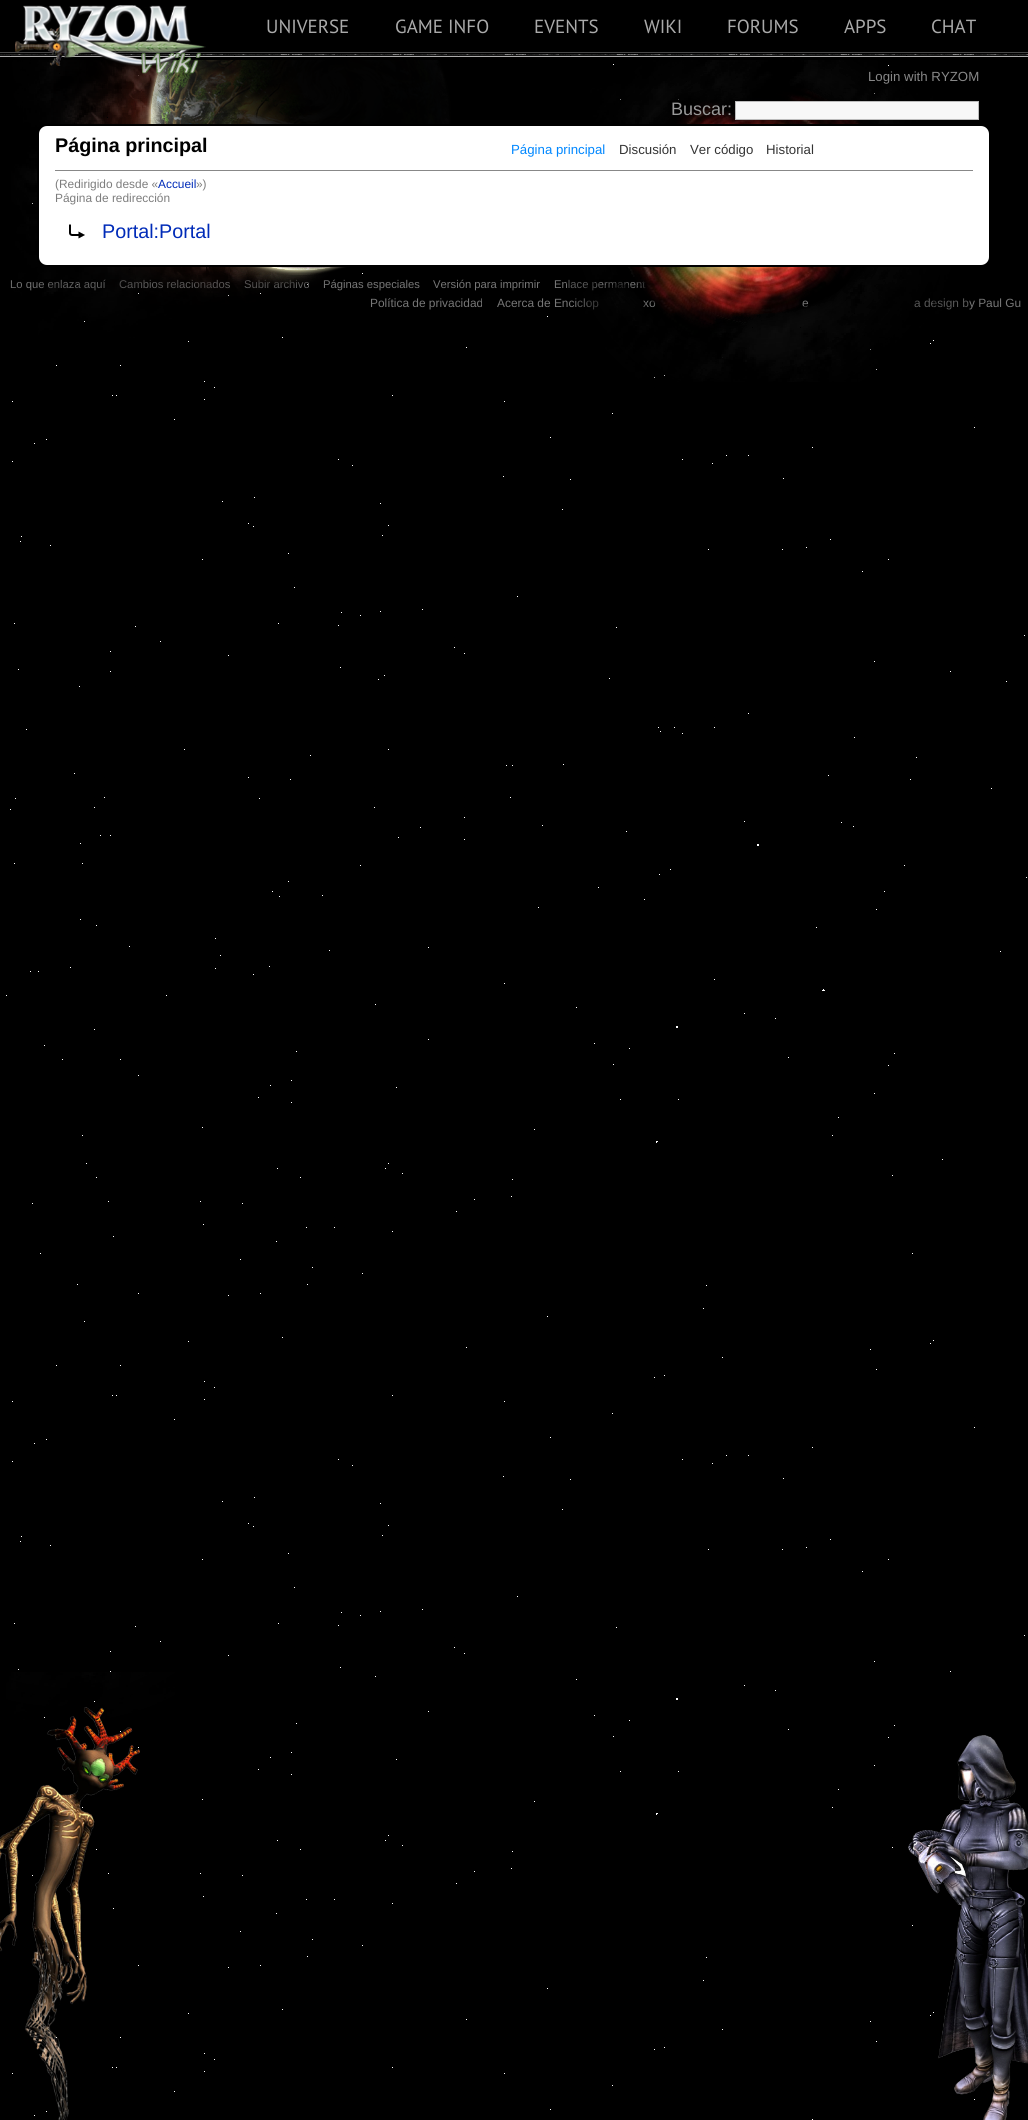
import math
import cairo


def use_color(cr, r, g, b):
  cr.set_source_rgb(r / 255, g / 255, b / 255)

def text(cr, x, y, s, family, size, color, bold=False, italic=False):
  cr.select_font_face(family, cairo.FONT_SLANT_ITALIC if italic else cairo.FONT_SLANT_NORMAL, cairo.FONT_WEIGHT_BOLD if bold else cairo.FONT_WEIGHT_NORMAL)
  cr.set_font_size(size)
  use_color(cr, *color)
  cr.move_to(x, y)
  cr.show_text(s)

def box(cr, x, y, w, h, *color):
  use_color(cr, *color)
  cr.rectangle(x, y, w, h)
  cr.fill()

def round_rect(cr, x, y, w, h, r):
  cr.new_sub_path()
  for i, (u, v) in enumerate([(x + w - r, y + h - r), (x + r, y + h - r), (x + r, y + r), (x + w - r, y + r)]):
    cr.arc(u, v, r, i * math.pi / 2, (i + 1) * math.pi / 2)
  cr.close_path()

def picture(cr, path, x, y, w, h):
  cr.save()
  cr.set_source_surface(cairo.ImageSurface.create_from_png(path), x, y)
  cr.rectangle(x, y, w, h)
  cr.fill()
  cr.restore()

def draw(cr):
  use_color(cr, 0, 0, 0)
  cr.paint()
  picture(cr, "img_01.png", 6, 322, 1021, 1798)
  picture(cr, "img_02.png", 32, 60, 911, 262)
  picture(cr, "img_04.png", 0, 52, 1028, 5)
  picture(cr, "img_08.png", 0, 1707, 140, 413)
  picture(cr, "img_09.png", 908, 1735, 120, 385)
  text(cr, 266, 33, "UNIVERSE", "PT Sans", 19, (170, 170, 170))
  text(cr, 395, 33, "GAME INFO", "PT Sans", 19, (170, 170, 170))
  text(cr, 534, 33, "EVENTS", "PT Sans", 19, (170, 170, 170))
  text(cr, 644, 33, "WIKI", "PT Sans", 19, (170, 170, 170))
  text(cr, 727, 33, "FORUMS", "PT Sans", 19, (170, 170, 170))
  text(cr, 844, 33, "APPS", "PT Sans", 19, (170, 170, 170))
  text(cr, 931, 33, "CHAT", "PT Sans", 19, (170, 170, 170))
  text(cr, 10, 288, "Lo que enlaza aquí", "Liberation Sans", 11.25, (119, 119, 119))
  text(cr, 119, 288, "Cambios relacionados", "Liberation Sans", 11.25, (119, 119, 119))
  text(cr, 244, 288, "Subir archivo", "Liberation Sans", 11.25, (119, 119, 119))
  text(cr, 323, 288, "Páginas especiales", "Liberation Sans", 11.25, (119, 119, 119))
  text(cr, 433, 288, "Versión para imprimir", "Liberation Sans", 11.25, (119, 119, 119))
  text(cr, 554, 288, "Enlace permanent", "Liberation Sans", 11.25, (119, 119, 119))
  text(cr, 370, 307, "Política de privacidad", "Liberation Sans", 11.9, (119, 119, 119))
  picture(cr, "img_05.png", 11, 60, 440, 282)
  picture(cr, "img_03.png", 15, 5, 191, 69)
  text(cr, 497, 307, "Acerca de Enciclop", "Liberation Sans", 11.9, (119, 119, 119))
  text(cr, 643, 307, "xo", "Liberation Sans", 11.9, (119, 119, 119))
  text(cr, 802, 307, "e", "Liberation Sans", 11.9, (119, 119, 119))
  text(cr, 914, 307, "a design by Paul Gu", "Liberation Sans", 11.9, (119, 119, 119))
  picture(cr, "img_06.png", 566, 60, 404, 322)
  use_color(cr, 255, 255, 255)
  round_rect(cr, 38, 125, 952, 141, 9)
  cr.fill_preserve()
  use_color(cr, 0, 0, 0)
  cr.stroke()
  text(cr, 766, 154, "Historial", "Liberation Sans", 13.25, (51, 51, 51))
  text(cr, 690, 154, "Ver código", "Liberation Sans", 13.25, (51, 51, 51))
  text(cr, 619, 154, "Discusión", "Liberation Sans", 13.25, (51, 51, 51))
  text(cr, 511, 154, "Página principal", "Liberation Sans", 13.25, (0, 135, 255))
  text(cr, 102, 238, "Portal:Portal", "Liberation Sans", 19.75, (0, 43, 184))
  picture(cr, "img_07.png", 69, 224, 16, 15)
  text(cr, 55, 202, "Página de redirección", "Liberation Sans", 11.9, (125, 125, 125))
  text(cr, 196, 188, "»)", "Liberation Sans", 11.9, (125, 125, 125))
  text(cr, 158, 188, "Accueil", "Liberation Sans", 11.9, (0, 43, 184))
  text(cr, 55, 188, "(Redirigido desde «", "Liberation Sans", 11.9, (125, 125, 125))
  text(cr, 55, 152, "Página principal", "Liberation Sans", 19.75, (0, 0, 0), bold=True)
  box(cr, 55, 170, 918, 1, 136, 136, 136)
  use_color(cr, 247, 247, 247)
  cr.rectangle(735.5, 101.5, 243, 18)
  cr.fill_preserve()
  use_color(cr, 187, 187, 187)
  cr.set_line_width(1)
  cr.stroke()
  text(cr, 671, 115, "Buscar:", "Liberation Sans", 18, (153, 153, 153))
  text(cr, 868, 81, "Login with RYZOM", "Liberation Sans", 13.25, (136, 136, 136))


surface = cairo.ImageSurface(cairo.FORMAT_RGB24, 1028, 2120)
cr = cairo.Context(surface)
options = cairo.FontOptions()
options.set_hint_metrics(cairo.HINT_METRICS_OFF)
options.set_hint_style(cairo.HINT_STYLE_NONE)
cr.set_font_options(options)
cr.set_miter_limit(4)
draw(cr)
surface.write_to_png("out.png")
